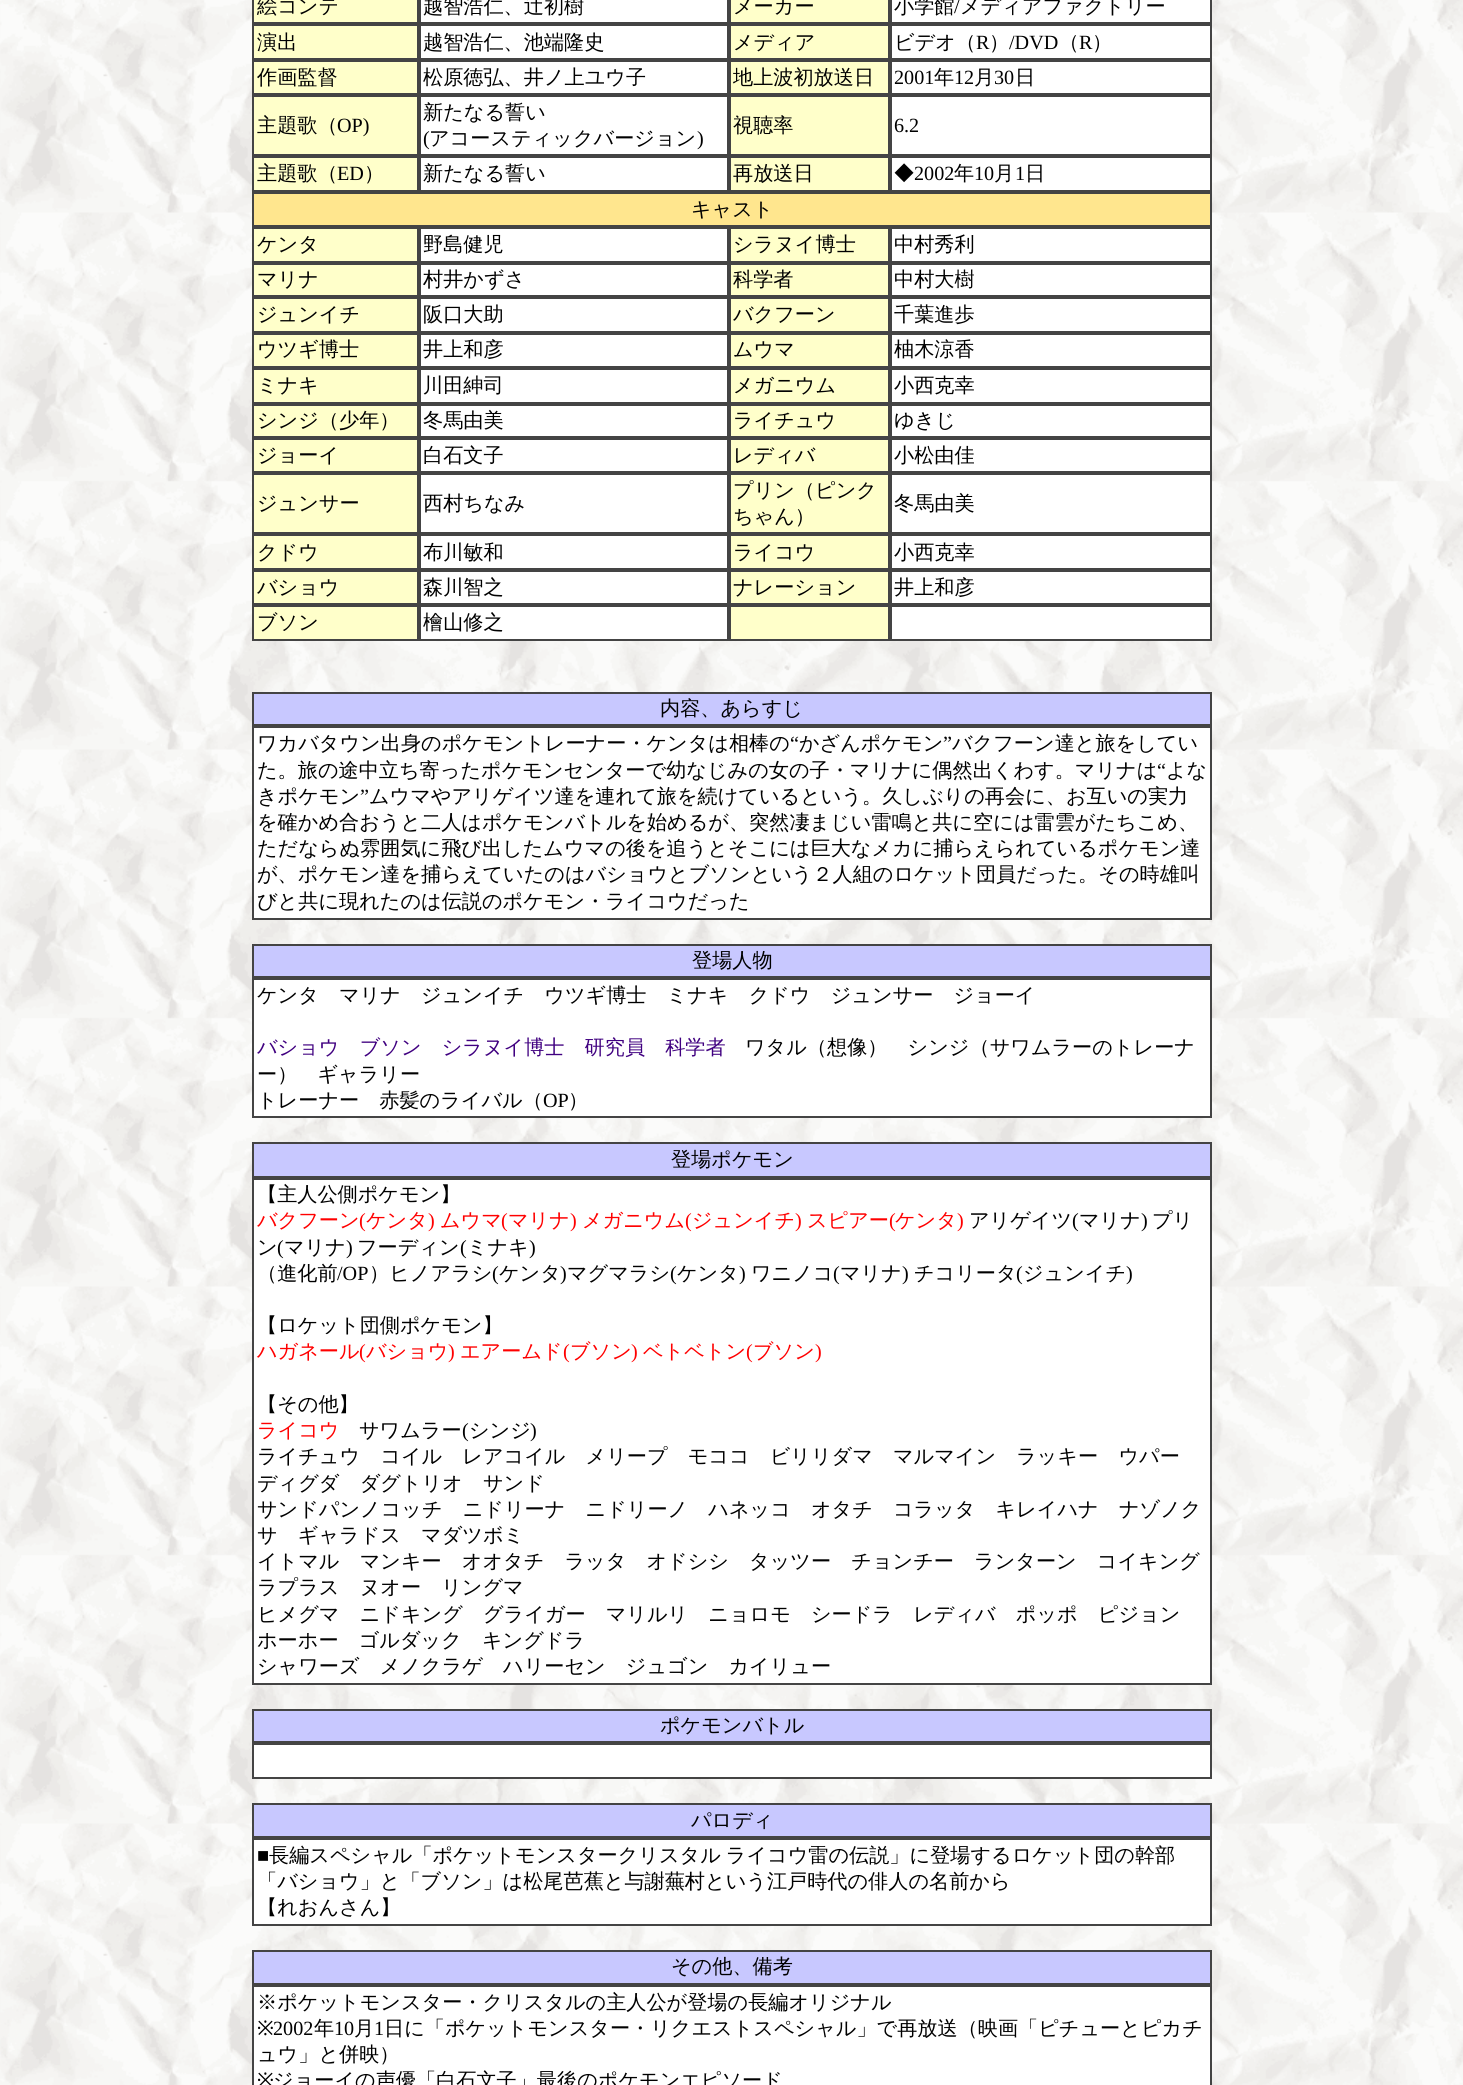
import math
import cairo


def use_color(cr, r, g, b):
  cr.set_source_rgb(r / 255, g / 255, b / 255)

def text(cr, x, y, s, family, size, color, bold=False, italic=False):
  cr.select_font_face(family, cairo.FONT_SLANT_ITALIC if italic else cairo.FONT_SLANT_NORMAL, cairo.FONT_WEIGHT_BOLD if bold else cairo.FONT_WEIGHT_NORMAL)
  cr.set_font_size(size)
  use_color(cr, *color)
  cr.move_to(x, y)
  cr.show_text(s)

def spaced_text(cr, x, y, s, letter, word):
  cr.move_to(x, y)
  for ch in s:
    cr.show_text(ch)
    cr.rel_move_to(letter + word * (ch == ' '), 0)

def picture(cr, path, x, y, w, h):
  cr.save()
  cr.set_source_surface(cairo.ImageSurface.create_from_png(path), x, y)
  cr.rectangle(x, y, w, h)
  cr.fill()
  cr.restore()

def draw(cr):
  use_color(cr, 255, 255, 255)
  cr.paint()
  picture(cr, "img_01.png", 0, 0, 1463, 2085)
  use_color(cr, 255, 255, 202)
  cr.rectangle(253, -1, 165, 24)
  cr.fill_preserve()
  use_color(cr, 68, 68, 68)
  cr.stroke()
  use_color(cr, 255, 255, 255)
  cr.rectangle(420, -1, 308, 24)
  cr.fill_preserve()
  use_color(cr, 68, 68, 68)
  cr.stroke()
  use_color(cr, 255, 255, 202)
  cr.rectangle(730, -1, 159, 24)
  cr.fill_preserve()
  use_color(cr, 68, 68, 68)
  cr.stroke()
  use_color(cr, 255, 255, 255)
  cr.rectangle(891, -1, 320, 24)
  cr.fill_preserve()
  use_color(cr, 68, 68, 68)
  cr.stroke()
  use_color(cr, 255, 255, 202)
  cr.rectangle(253, 25, 165, 34)
  cr.fill_preserve()
  use_color(cr, 68, 68, 68)
  cr.stroke()
  use_color(cr, 255, 255, 255)
  cr.rectangle(420, 25, 308, 34)
  cr.fill_preserve()
  use_color(cr, 68, 68, 68)
  cr.stroke()
  use_color(cr, 255, 255, 202)
  cr.rectangle(730, 25, 159, 34)
  cr.fill_preserve()
  use_color(cr, 68, 68, 68)
  cr.stroke()
  use_color(cr, 255, 255, 255)
  cr.rectangle(891, 25, 320, 34)
  cr.fill_preserve()
  use_color(cr, 68, 68, 68)
  cr.stroke()
  use_color(cr, 255, 255, 202)
  cr.rectangle(253, 61, 165, 33)
  cr.fill_preserve()
  use_color(cr, 68, 68, 68)
  cr.stroke()
  use_color(cr, 255, 255, 255)
  cr.rectangle(420, 61, 308, 33)
  cr.fill_preserve()
  use_color(cr, 68, 68, 68)
  cr.stroke()
  use_color(cr, 255, 255, 202)
  cr.rectangle(730, 61, 159, 33)
  cr.fill_preserve()
  use_color(cr, 68, 68, 68)
  cr.stroke()
  use_color(cr, 255, 255, 255)
  cr.rectangle(891, 61, 320, 33)
  cr.fill_preserve()
  use_color(cr, 68, 68, 68)
  cr.stroke()
  use_color(cr, 255, 255, 202)
  cr.rectangle(253, 96, 165, 59)
  cr.fill_preserve()
  use_color(cr, 68, 68, 68)
  cr.stroke()
  use_color(cr, 255, 255, 255)
  cr.rectangle(420, 96, 308, 59)
  cr.fill_preserve()
  use_color(cr, 68, 68, 68)
  cr.stroke()
  use_color(cr, 255, 255, 202)
  cr.rectangle(730, 96, 159, 59)
  cr.fill_preserve()
  use_color(cr, 68, 68, 68)
  cr.stroke()
  use_color(cr, 255, 255, 255)
  cr.rectangle(891, 96, 320, 59)
  cr.fill_preserve()
  use_color(cr, 68, 68, 68)
  cr.stroke()
  use_color(cr, 255, 255, 202)
  cr.rectangle(253, 157, 165, 34)
  cr.fill_preserve()
  use_color(cr, 68, 68, 68)
  cr.stroke()
  use_color(cr, 255, 255, 255)
  cr.rectangle(420, 157, 308, 34)
  cr.fill_preserve()
  use_color(cr, 68, 68, 68)
  cr.stroke()
  use_color(cr, 255, 255, 202)
  cr.rectangle(730, 157, 159, 34)
  cr.fill_preserve()
  use_color(cr, 68, 68, 68)
  cr.stroke()
  use_color(cr, 255, 255, 255)
  cr.rectangle(891, 157, 320, 34)
  cr.fill_preserve()
  use_color(cr, 68, 68, 68)
  cr.stroke()
  use_color(cr, 255, 230, 142)
  cr.rectangle(253, 193, 958, 33)
  cr.fill_preserve()
  use_color(cr, 68, 68, 68)
  cr.stroke()
  use_color(cr, 255, 255, 202)
  cr.rectangle(253, 228, 165, 34)
  cr.fill_preserve()
  use_color(cr, 68, 68, 68)
  cr.stroke()
  use_color(cr, 255, 255, 255)
  cr.rectangle(420, 228, 308, 34)
  cr.fill_preserve()
  use_color(cr, 68, 68, 68)
  cr.stroke()
  use_color(cr, 255, 255, 202)
  cr.rectangle(730, 228, 159, 34)
  cr.fill_preserve()
  use_color(cr, 68, 68, 68)
  cr.stroke()
  use_color(cr, 255, 255, 255)
  cr.rectangle(891, 228, 320, 34)
  cr.fill_preserve()
  use_color(cr, 68, 68, 68)
  cr.stroke()
  use_color(cr, 255, 255, 202)
  cr.rectangle(253, 264, 165, 32)
  cr.fill_preserve()
  use_color(cr, 68, 68, 68)
  cr.stroke()
  use_color(cr, 255, 255, 255)
  cr.rectangle(420, 264, 308, 32)
  cr.fill_preserve()
  use_color(cr, 68, 68, 68)
  cr.stroke()
  use_color(cr, 255, 255, 202)
  cr.rectangle(730, 264, 159, 32)
  cr.fill_preserve()
  use_color(cr, 68, 68, 68)
  cr.stroke()
  use_color(cr, 255, 255, 255)
  cr.rectangle(891, 264, 320, 32)
  cr.fill_preserve()
  use_color(cr, 68, 68, 68)
  cr.stroke()
  use_color(cr, 255, 255, 202)
  cr.rectangle(253, 298, 165, 34)
  cr.fill_preserve()
  use_color(cr, 68, 68, 68)
  cr.stroke()
  use_color(cr, 255, 255, 255)
  cr.rectangle(420, 298, 308, 34)
  cr.fill_preserve()
  use_color(cr, 68, 68, 68)
  cr.stroke()
  use_color(cr, 255, 255, 202)
  cr.rectangle(730, 298, 159, 34)
  cr.fill_preserve()
  use_color(cr, 68, 68, 68)
  cr.stroke()
  use_color(cr, 255, 255, 255)
  cr.rectangle(891, 298, 320, 34)
  cr.fill_preserve()
  use_color(cr, 68, 68, 68)
  cr.stroke()
  use_color(cr, 255, 255, 202)
  cr.rectangle(253, 334, 165, 33)
  cr.fill_preserve()
  use_color(cr, 68, 68, 68)
  cr.stroke()
  use_color(cr, 255, 255, 255)
  cr.rectangle(420, 334, 308, 33)
  cr.fill_preserve()
  use_color(cr, 68, 68, 68)
  cr.stroke()
  use_color(cr, 255, 255, 202)
  cr.rectangle(730, 334, 159, 33)
  cr.fill_preserve()
  use_color(cr, 68, 68, 68)
  cr.stroke()
  use_color(cr, 255, 255, 255)
  cr.rectangle(891, 334, 320, 33)
  cr.fill_preserve()
  use_color(cr, 68, 68, 68)
  cr.stroke()
  use_color(cr, 255, 255, 202)
  cr.rectangle(253, 369, 165, 34)
  cr.fill_preserve()
  use_color(cr, 68, 68, 68)
  cr.stroke()
  use_color(cr, 255, 255, 255)
  cr.rectangle(420, 369, 308, 34)
  cr.fill_preserve()
  use_color(cr, 68, 68, 68)
  cr.stroke()
  use_color(cr, 255, 255, 202)
  cr.rectangle(730, 369, 159, 34)
  cr.fill_preserve()
  use_color(cr, 68, 68, 68)
  cr.stroke()
  use_color(cr, 255, 255, 255)
  cr.rectangle(891, 369, 320, 34)
  cr.fill_preserve()
  use_color(cr, 68, 68, 68)
  cr.stroke()
  use_color(cr, 255, 255, 202)
  cr.rectangle(253, 405, 165, 32)
  cr.fill_preserve()
  use_color(cr, 68, 68, 68)
  cr.stroke()
  use_color(cr, 255, 255, 255)
  cr.rectangle(420, 405, 308, 32)
  cr.fill_preserve()
  use_color(cr, 68, 68, 68)
  cr.stroke()
  use_color(cr, 255, 255, 202)
  cr.rectangle(730, 405, 159, 32)
  cr.fill_preserve()
  use_color(cr, 68, 68, 68)
  cr.stroke()
  use_color(cr, 255, 255, 255)
  cr.rectangle(891, 405, 320, 32)
  cr.fill_preserve()
  use_color(cr, 68, 68, 68)
  cr.stroke()
  use_color(cr, 255, 255, 202)
  cr.rectangle(253, 439, 165, 33)
  cr.fill_preserve()
  use_color(cr, 68, 68, 68)
  cr.stroke()
  use_color(cr, 255, 255, 255)
  cr.rectangle(420, 439, 308, 33)
  cr.fill_preserve()
  use_color(cr, 68, 68, 68)
  cr.stroke()
  use_color(cr, 255, 255, 202)
  cr.rectangle(730, 439, 159, 33)
  cr.fill_preserve()
  use_color(cr, 68, 68, 68)
  cr.stroke()
  use_color(cr, 255, 255, 255)
  cr.rectangle(891, 439, 320, 33)
  cr.fill_preserve()
  use_color(cr, 68, 68, 68)
  cr.stroke()
  use_color(cr, 255, 255, 202)
  cr.rectangle(253, 474, 165, 59)
  cr.fill_preserve()
  use_color(cr, 68, 68, 68)
  cr.stroke()
  use_color(cr, 255, 255, 255)
  cr.rectangle(420, 474, 308, 59)
  cr.fill_preserve()
  use_color(cr, 68, 68, 68)
  cr.stroke()
  use_color(cr, 255, 255, 202)
  cr.rectangle(730, 474, 159, 59)
  cr.fill_preserve()
  use_color(cr, 68, 68, 68)
  cr.stroke()
  use_color(cr, 255, 255, 255)
  cr.rectangle(891, 474, 320, 59)
  cr.fill_preserve()
  use_color(cr, 68, 68, 68)
  cr.stroke()
  use_color(cr, 255, 255, 202)
  cr.rectangle(253, 535, 165, 34)
  cr.fill_preserve()
  use_color(cr, 68, 68, 68)
  cr.stroke()
  use_color(cr, 255, 255, 255)
  cr.rectangle(420, 535, 308, 34)
  cr.fill_preserve()
  use_color(cr, 68, 68, 68)
  cr.stroke()
  use_color(cr, 255, 255, 202)
  cr.rectangle(730, 535, 159, 34)
  cr.fill_preserve()
  use_color(cr, 68, 68, 68)
  cr.stroke()
  use_color(cr, 255, 255, 255)
  cr.rectangle(891, 535, 320, 34)
  cr.fill_preserve()
  use_color(cr, 68, 68, 68)
  cr.stroke()
  use_color(cr, 255, 255, 202)
  cr.rectangle(253, 571, 165, 33)
  cr.fill_preserve()
  use_color(cr, 68, 68, 68)
  cr.stroke()
  use_color(cr, 255, 255, 255)
  cr.rectangle(420, 571, 308, 33)
  cr.fill_preserve()
  use_color(cr, 68, 68, 68)
  cr.stroke()
  use_color(cr, 255, 255, 202)
  cr.rectangle(730, 571, 159, 33)
  cr.fill_preserve()
  use_color(cr, 68, 68, 68)
  cr.stroke()
  use_color(cr, 255, 255, 255)
  cr.rectangle(891, 571, 320, 33)
  cr.fill_preserve()
  use_color(cr, 68, 68, 68)
  cr.stroke()
  use_color(cr, 255, 255, 202)
  cr.rectangle(253, 606, 165, 34)
  cr.fill_preserve()
  use_color(cr, 68, 68, 68)
  cr.stroke()
  use_color(cr, 255, 255, 255)
  cr.rectangle(420, 606, 308, 34)
  cr.fill_preserve()
  use_color(cr, 68, 68, 68)
  cr.stroke()
  use_color(cr, 255, 255, 202)
  cr.rectangle(730, 606, 159, 34)
  cr.fill_preserve()
  use_color(cr, 68, 68, 68)
  cr.stroke()
  use_color(cr, 255, 255, 255)
  cr.rectangle(891, 606, 320, 34)
  cr.fill_preserve()
  use_color(cr, 68, 68, 68)
  cr.stroke()
  use_color(cr, 200, 200, 255)
  cr.rectangle(253, 693, 958, 32)
  cr.fill_preserve()
  use_color(cr, 68, 68, 68)
  cr.stroke()
  use_color(cr, 255, 255, 255)
  cr.rectangle(253, 727, 958, 192)
  cr.fill_preserve()
  use_color(cr, 68, 68, 68)
  cr.stroke()
  use_color(cr, 200, 200, 255)
  cr.rectangle(253, 945, 958, 32)
  cr.fill_preserve()
  use_color(cr, 68, 68, 68)
  cr.stroke()
  use_color(cr, 255, 255, 255)
  cr.rectangle(253, 979, 958, 138)
  cr.fill_preserve()
  use_color(cr, 68, 68, 68)
  cr.stroke()
  use_color(cr, 200, 200, 255)
  cr.rectangle(253, 1143, 958, 34)
  cr.fill_preserve()
  use_color(cr, 68, 68, 68)
  cr.stroke()
  use_color(cr, 255, 255, 255)
  cr.rectangle(253, 1179, 958, 505)
  cr.fill_preserve()
  use_color(cr, 68, 68, 68)
  cr.stroke()
  use_color(cr, 200, 200, 255)
  cr.rectangle(253, 1710, 958, 32)
  cr.fill_preserve()
  use_color(cr, 68, 68, 68)
  cr.stroke()
  use_color(cr, 255, 255, 255)
  cr.rectangle(253, 1744, 958, 34)
  cr.fill_preserve()
  use_color(cr, 68, 68, 68)
  cr.stroke()
  use_color(cr, 200, 200, 255)
  cr.rectangle(253, 1804, 958, 33)
  cr.fill_preserve()
  use_color(cr, 68, 68, 68)
  cr.stroke()
  use_color(cr, 255, 255, 255)
  cr.rectangle(253, 1839, 958, 86)
  cr.fill_preserve()
  use_color(cr, 68, 68, 68)
  cr.stroke()
  use_color(cr, 200, 200, 255)
  cr.rectangle(253, 1951, 958, 33)
  cr.fill_preserve()
  use_color(cr, 68, 68, 68)
  cr.stroke()
  use_color(cr, 255, 255, 255)
  cr.rectangle(253, 1986, 958, 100)
  cr.fill_preserve()
  use_color(cr, 68, 68, 68)
  cr.stroke()
  text(cr, 257, 13, "絵コンテ", "WenQuanYi Zen Hei Medium", 20.15, (0, 0, 0))
  text(cr, 423, 13, "越智浩仁、辻初樹", "WenQuanYi Zen Hei Medium", 20.15, (0, 0, 0))
  text(cr, 733, 13, "メーカー", "WenQuanYi Zen Hei Medium", 20.15, (0, 0, 0))
  text(cr, 894, 13, "小学館", "WenQuanYi Zen Hei Medium", 20.15, (0, 0, 0))
  text(cr, 954, 13, "/", "Liberation Serif", 20.15, (0, 0, 0))
  text(cr, 960, 13, "メディアファクトリー", "WenQuanYi Zen Hei Medium", 20.15, (0, 0, 0))
  text(cr, 257, 49, "演出", "WenQuanYi Zen Hei Medium", 20.15, (0, 0, 0))
  text(cr, 423, 49, "越智浩仁、池端隆史", "WenQuanYi Zen Hei Medium", 20.15, (0, 0, 0))
  text(cr, 733, 49, "メディア", "WenQuanYi Zen Hei Medium", 20.15, (0, 0, 0))
  text(cr, 894, 49, "ビデオ（", "WenQuanYi Zen Hei Medium", 20.15, (0, 0, 0))
  text(cr, 976, 49, "R", "Liberation Serif", 20.15, (0, 0, 0))
  text(cr, 989, 49, "）", "WenQuanYi Zen Hei Medium", 20.15, (0, 0, 0))
  text(cr, 1009, 49, "/DVD", "Liberation Serif", 20.15, (0, 0, 0))
  text(cr, 1059, 49, "（", "WenQuanYi Zen Hei Medium", 20.15, (0, 0, 0))
  text(cr, 1079, 49, "R", "Liberation Serif", 20.15, (0, 0, 0))
  text(cr, 1092, 49, "）", "WenQuanYi Zen Hei Medium", 20.15, (0, 0, 0))
  text(cr, 257, 84, "作画監督", "WenQuanYi Zen Hei Medium", 20.15, (0, 0, 0))
  text(cr, 423, 84, "松原徳弘、井ノ上ユウ子", "WenQuanYi Zen Hei Medium", 20.15, (0, 0, 0))
  text(cr, 733, 84, "地上波初放送日", "WenQuanYi Zen Hei Medium", 20.15, (0, 0, 0))
  text(cr, 894, 84, "2001", "Liberation Serif", 20.15, (0, 0, 0))
  text(cr, 934, 84, "年", "WenQuanYi Zen Hei Medium", 20.15, (0, 0, 0))
  text(cr, 954, 84, "12", "Liberation Serif", 20.15, (0, 0, 0))
  text(cr, 974, 84, "月", "WenQuanYi Zen Hei Medium", 20.15, (0, 0, 0))
  text(cr, 994, 84, "30", "Liberation Serif", 20.15, (0, 0, 0))
  text(cr, 1015, 84, "日", "WenQuanYi Zen Hei Medium", 20.15, (0, 0, 0))
  text(cr, 257, 132, "主題歌（", "WenQuanYi Zen Hei Medium", 20.15, (0, 0, 0))
  text(cr, 337, 132, "OP)", "Liberation Serif", 20.15, (0, 0, 0))
  text(cr, 423, 119, "新たなる誓い", "WenQuanYi Zen Hei Medium", 20.15, (0, 0, 0))
  text(cr, 423, 145, "(", "Liberation Serif", 20.15, (0, 0, 0))
  text(cr, 429, 145, "アコースティックバージョン", "WenQuanYi Zen Hei Medium", 20.15, (0, 0, 0))
  text(cr, 697, 145, ")", "Liberation Serif", 20.15, (0, 0, 0))
  text(cr, 733, 132, "視聴率", "WenQuanYi Zen Hei Medium", 20.15, (0, 0, 0))
  text(cr, 894, 132, "6.2", "Liberation Serif", 20.15, (0, 0, 0))
  text(cr, 257, 180, "主題歌（", "WenQuanYi Zen Hei Medium", 20.15, (0, 0, 0))
  text(cr, 337, 180, "ED", "Liberation Serif", 20.15, (0, 0, 0))
  text(cr, 364, 180, "）", "WenQuanYi Zen Hei Medium", 20.15, (0, 0, 0))
  text(cr, 423, 180, "新たなる誓い", "WenQuanYi Zen Hei Medium", 20.15, (0, 0, 0))
  text(cr, 733, 180, "再放送日", "WenQuanYi Zen Hei Medium", 20.15, (0, 0, 0))
  text(cr, 894, 180, "◆", "WenQuanYi Zen Hei Medium", 20.15, (0, 0, 0))
  text(cr, 914, 180, "2002", "Liberation Serif", 20.15, (0, 0, 0))
  text(cr, 954, 180, "年", "WenQuanYi Zen Hei Medium", 20.15, (0, 0, 0))
  text(cr, 974, 180, "10", "Liberation Serif", 20.15, (0, 0, 0))
  text(cr, 994, 180, "月", "WenQuanYi Zen Hei Medium", 20.15, (0, 0, 0))
  text(cr, 1015, 180, "1", "Liberation Serif", 20.15, (0, 0, 0))
  text(cr, 1025, 180, "日", "WenQuanYi Zen Hei Medium", 20.15, (0, 0, 0))
  text(cr, 691, 216, "キャスト", "WenQuanYi Zen Hei Medium", 20.15, (0, 0, 0))
  text(cr, 257, 251, "ケンタ", "WenQuanYi Zen Hei Medium", 20.15, (0, 0, 0))
  text(cr, 423, 251, "野島健児", "WenQuanYi Zen Hei Medium", 20.15, (0, 0, 0))
  text(cr, 733, 251, "シラヌイ博士", "WenQuanYi Zen Hei Medium", 20.15, (0, 0, 0))
  text(cr, 894, 251, "中村秀利", "WenQuanYi Zen Hei Medium", 20.15, (0, 0, 0))
  text(cr, 257, 286, "マリナ", "WenQuanYi Zen Hei Medium", 20.15, (0, 0, 0))
  text(cr, 423, 286, "村井かずさ", "WenQuanYi Zen Hei Medium", 20.15, (0, 0, 0))
  text(cr, 733, 286, "科学者", "WenQuanYi Zen Hei Medium", 20.15, (0, 0, 0))
  text(cr, 894, 286, "中村大樹", "WenQuanYi Zen Hei Medium", 20.15, (0, 0, 0))
  text(cr, 257, 321, "ジュンイチ", "WenQuanYi Zen Hei Medium", 20.15, (0, 0, 0))
  text(cr, 423, 321, "阪口大助", "WenQuanYi Zen Hei Medium", 20.15, (0, 0, 0))
  text(cr, 733, 321, "バクフーン", "WenQuanYi Zen Hei Medium", 20.15, (0, 0, 0))
  text(cr, 894, 321, "千葉進歩", "WenQuanYi Zen Hei Medium", 20.15, (0, 0, 0))
  text(cr, 257, 356, "ウツギ博士", "WenQuanYi Zen Hei Medium", 20.15, (0, 0, 0))
  text(cr, 423, 356, "井上和彦", "WenQuanYi Zen Hei Medium", 20.15, (0, 0, 0))
  text(cr, 733, 356, "ムウマ", "WenQuanYi Zen Hei Medium", 20.15, (0, 0, 0))
  text(cr, 894, 356, "柚木涼香", "WenQuanYi Zen Hei Medium", 20.15, (0, 0, 0))
  text(cr, 257, 392, "ミナキ", "WenQuanYi Zen Hei Medium", 20.15, (0, 0, 0))
  text(cr, 423, 392, "川田紳司", "WenQuanYi Zen Hei Medium", 20.15, (0, 0, 0))
  text(cr, 733, 392, "メガニウム", "WenQuanYi Zen Hei Medium", 20.15, (0, 0, 0))
  text(cr, 894, 392, "小西克幸", "WenQuanYi Zen Hei Medium", 20.15, (0, 0, 0))
  text(cr, 257, 427, "シンジ（少年）", "WenQuanYi Zen Hei Medium", 20.15, (0, 0, 0))
  text(cr, 423, 427, "冬馬由美", "WenQuanYi Zen Hei Medium", 20.15, (0, 0, 0))
  text(cr, 733, 427, "ライチュウ", "WenQuanYi Zen Hei Medium", 20.15, (0, 0, 0))
  text(cr, 894, 427, "ゆきじ", "WenQuanYi Zen Hei Medium", 20.15, (0, 0, 0))
  text(cr, 257, 462, "ジョーイ", "WenQuanYi Zen Hei Medium", 20.15, (0, 0, 0))
  text(cr, 423, 462, "白石文子", "WenQuanYi Zen Hei Medium", 20.15, (0, 0, 0))
  text(cr, 733, 462, "レディバ", "WenQuanYi Zen Hei Medium", 20.15, (0, 0, 0))
  text(cr, 894, 462, "小松由佳", "WenQuanYi Zen Hei Medium", 20.15, (0, 0, 0))
  text(cr, 257, 510, "ジュンサー", "WenQuanYi Zen Hei Medium", 20.15, (0, 0, 0))
  text(cr, 423, 510, "西村ちなみ", "WenQuanYi Zen Hei Medium", 20.15, (0, 0, 0))
  text(cr, 733, 497, "プリン（ピンク", "WenQuanYi Zen Hei Medium", 20.15, (0, 0, 0))
  text(cr, 733, 523, "ちゃん）", "WenQuanYi Zen Hei Medium", 20.15, (0, 0, 0))
  text(cr, 894, 510, "冬馬由美", "WenQuanYi Zen Hei Medium", 20.15, (0, 0, 0))
  text(cr, 257, 559, "クドウ", "WenQuanYi Zen Hei Medium", 20.15, (0, 0, 0))
  text(cr, 423, 559, "布川敏和", "WenQuanYi Zen Hei Medium", 20.15, (0, 0, 0))
  text(cr, 733, 559, "ライコウ", "WenQuanYi Zen Hei Medium", 20.15, (0, 0, 0))
  text(cr, 894, 559, "小西克幸", "WenQuanYi Zen Hei Medium", 20.15, (0, 0, 0))
  text(cr, 257, 594, "バショウ", "WenQuanYi Zen Hei Medium", 20.15, (0, 0, 0))
  text(cr, 423, 594, "森川智之", "WenQuanYi Zen Hei Medium", 20.15, (0, 0, 0))
  text(cr, 733, 594, "ナレーション", "WenQuanYi Zen Hei Medium", 20.15, (0, 0, 0))
  text(cr, 894, 594, "井上和彦", "WenQuanYi Zen Hei Medium", 20.15, (0, 0, 0))
  text(cr, 257, 629, "ブソン", "WenQuanYi Zen Hei Medium", 20.15, (0, 0, 0))
  text(cr, 423, 629, "檜山修之", "WenQuanYi Zen Hei Medium", 20.15, (0, 0, 0))
  text(cr, 660, 715, "内容、あらすじ", "WenQuanYi Zen Hei Medium", 20.15, (0, 0, 0))
  text(cr, 257, 750, "ワカバタウン出身のポケモントレーナー・ケンタは相棒の", "WenQuanYi Zen Hei Medium", 20.15, (0, 0, 0))
  text(cr, 790, 750, "“", "Liberation Serif", 20.15, (0, 0, 0))
  text(cr, 799, 750, "かざんポケモン", "WenQuanYi Zen Hei Medium", 20.15, (0, 0, 0))
  text(cr, 943, 750, "”", "Liberation Serif", 20.15, (0, 0, 0))
  text(cr, 952, 750, "バクフーン達と旅をしてい", "WenQuanYi Zen Hei Medium", 20.15, (0, 0, 0))
  text(cr, 257, 777, "た。旅の途中立ち寄ったポケモンセンターで幼なじみの女の子・マリナに偶然出くわす。マリナは", "WenQuanYi Zen Hei Medium", 20.15, (0, 0, 0))
  text(cr, 1157, 777, "“", "Liberation Serif", 20.15, (0, 0, 0))
  text(cr, 1166, 777, "よな", "WenQuanYi Zen Hei Medium", 20.15, (0, 0, 0))
  text(cr, 257, 803, "きポケモン", "WenQuanYi Zen Hei Medium", 20.15, (0, 0, 0))
  text(cr, 360, 803, "”", "Liberation Serif", 20.15, (0, 0, 0))
  text(cr, 369, 803, "ムウマやアリゲイツ達を連れて旅を続けているという。久しぶりの再会に、お互いの実力", "WenQuanYi Zen Hei Medium", 20.15, (0, 0, 0))
  text(cr, 257, 829, "を確かめ合おうと二人はポケモンバトルを始めるが、突然凄まじい雷鳴と共に空には雷雲がたちこめ、", "WenQuanYi Zen Hei Medium", 20.15, (0, 0, 0))
  text(cr, 257, 855, "ただならぬ雰囲気に飛び出したムウマの後を追うとそこには巨大なメカに捕らえられているポケモン達", "WenQuanYi Zen Hei Medium", 20.15, (0, 0, 0))
  text(cr, 257, 881, "が、ポケモン達を捕らえていたのはバショウとブソンという２人組のロケット団員だった。その時雄叫", "WenQuanYi Zen Hei Medium", 20.15, (0, 0, 0))
  text(cr, 257, 908, "びと共に現れたのは伝説のポケモン・ライコウだった", "WenQuanYi Zen Hei Medium", 20.15, (0, 0, 0))
  text(cr, 692, 967, "登場人物", "WenQuanYi Zen Hei Medium", 20.15, (0, 0, 0))
  text(cr, 257, 1002, "ケンタ　マリナ　ジュンイチ　ウツギ博士　ミナキ　クドウ　ジュンサー　ジョーイ", "WenQuanYi Zen Hei Medium", 20.15, (0, 0, 0))
  text(cr, 257, 1054, "バショウ　ブソン　シラヌイ博士　研究員　科学者", "WenQuanYi Zen Hei Medium", 20.15, (64, 0, 128))
  text(cr, 745, 1054, "ワタル（想像）　シンジ（サワムラーのトレーナ", "WenQuanYi Zen Hei Medium", 20.15, (0, 0, 0))
  text(cr, 257, 1081, "ー）　ギャラリー", "WenQuanYi Zen Hei Medium", 20.15, (0, 0, 0))
  text(cr, 257, 1107, "トレーナー　赤髪のライバル（", "WenQuanYi Zen Hei Medium", 20.15, (0, 0, 0))
  text(cr, 543, 1107, "OP", "Liberation Serif", 20.15, (0, 0, 0))
  text(cr, 568, 1107, "）", "WenQuanYi Zen Hei Medium", 20.15, (0, 0, 0))
  text(cr, 671, 1166, "登場ポケモン", "WenQuanYi Zen Hei Medium", 20.15, (0, 0, 0))
  text(cr, 257, 1201, "【主人公側ポケモン】", "WenQuanYi Zen Hei Medium", 20.15, (0, 0, 0))
  text(cr, 257, 1227, "バクフーン", "WenQuanYi Zen Hei Medium", 20.15, (255, 0, 0))
  text(cr, 359, 1227, "(", "Liberation Serif", 20.15, (255, 0, 0))
  text(cr, 366, 1227, "ケンタ", "WenQuanYi Zen Hei Medium", 20.15, (255, 0, 0))
  text(cr, 428, 1227, ")", "Liberation Serif", 20.15, (255, 0, 0))
  text(cr, 440, 1227, "ムウマ", "WenQuanYi Zen Hei Medium", 20.15, (255, 0, 0))
  text(cr, 501, 1227, "(", "Liberation Serif", 20.15, (255, 0, 0))
  text(cr, 508, 1227, "マリナ", "WenQuanYi Zen Hei Medium", 20.15, (255, 0, 0))
  text(cr, 570, 1227, ")", "Liberation Serif", 20.15, (255, 0, 0))
  text(cr, 582, 1227, "メガニウム", "WenQuanYi Zen Hei Medium", 20.15, (255, 0, 0))
  text(cr, 685, 1227, "(", "Liberation Serif", 20.15, (255, 0, 0))
  text(cr, 692, 1227, "ジュンイチ", "WenQuanYi Zen Hei Medium", 20.15, (255, 0, 0))
  text(cr, 795, 1227, ")", "Liberation Serif", 20.15, (255, 0, 0))
  text(cr, 807, 1227, "スピアー", "WenQuanYi Zen Hei Medium", 20.15, (255, 0, 0))
  text(cr, 889, 1227, "(", "Liberation Serif", 20.15, (255, 0, 0))
  text(cr, 895, 1227, "ケンタ", "WenQuanYi Zen Hei Medium", 20.15, (255, 0, 0))
  text(cr, 957, 1227, ")", "Liberation Serif", 20.15, (255, 0, 0))
  text(cr, 969, 1227, "アリゲイツ", "WenQuanYi Zen Hei Medium", 20.15, (0, 0, 0))
  text(cr, 1072, 1227, "(", "Liberation Serif", 20.15, (0, 0, 0))
  text(cr, 1079, 1227, "マリナ", "WenQuanYi Zen Hei Medium", 20.15, (0, 0, 0))
  text(cr, 1141, 1227, ")", "Liberation Serif", 20.15, (0, 0, 0))
  text(cr, 1152, 1227, "プリ", "WenQuanYi Zen Hei Medium", 20.15, (0, 0, 0))
  text(cr, 257, 1254, "ン", "WenQuanYi Zen Hei Medium", 20.15, (0, 0, 0))
  text(cr, 277, 1254, "(", "Liberation Serif", 20.15, (0, 0, 0))
  text(cr, 284, 1254, "マリナ", "WenQuanYi Zen Hei Medium", 20.15, (0, 0, 0))
  text(cr, 346, 1254, ")", "Liberation Serif", 20.15, (0, 0, 0))
  text(cr, 357, 1254, "フーディン", "WenQuanYi Zen Hei Medium", 20.15, (0, 0, 0))
  text(cr, 460, 1254, "(", "Liberation Serif", 20.15, (0, 0, 0))
  text(cr, 467, 1254, "ミナキ", "WenQuanYi Zen Hei Medium", 20.15, (0, 0, 0))
  text(cr, 529, 1254, ")", "Liberation Serif", 20.15, (0, 0, 0))
  text(cr, 257, 1280, "（進化前", "WenQuanYi Zen Hei Medium", 20.15, (0, 0, 0))
  text(cr, 337, 1280, "/OP", "Liberation Serif", 20.15, (0, 0, 0))
  text(cr, 369, 1280, "）ヒノアラシ", "WenQuanYi Zen Hei Medium", 20.15, (0, 0, 0))
  text(cr, 492, 1280, "(", "Liberation Serif", 20.15, (0, 0, 0))
  text(cr, 499, 1280, "ケンタ", "WenQuanYi Zen Hei Medium", 20.15, (0, 0, 0))
  text(cr, 560, 1280, ")", "Liberation Serif", 20.15, (0, 0, 0))
  text(cr, 567, 1280, "マグマラシ", "WenQuanYi Zen Hei Medium", 20.15, (0, 0, 0))
  text(cr, 670, 1280, "(", "Liberation Serif", 20.15, (0, 0, 0))
  text(cr, 677, 1280, "ケンタ", "WenQuanYi Zen Hei Medium", 20.15, (0, 0, 0))
  text(cr, 739, 1280, ")", "Liberation Serif", 20.15, (0, 0, 0))
  text(cr, 751, 1280, "ワニノコ", "WenQuanYi Zen Hei Medium", 20.15, (0, 0, 0))
  text(cr, 833, 1280, "(", "Liberation Serif", 20.15, (0, 0, 0))
  text(cr, 840, 1280, "マリナ", "WenQuanYi Zen Hei Medium", 20.15, (0, 0, 0))
  text(cr, 902, 1280, ")", "Liberation Serif", 20.15, (0, 0, 0))
  text(cr, 914, 1280, "チコリータ", "WenQuanYi Zen Hei Medium", 20.15, (0, 0, 0))
  text(cr, 1016, 1280, "(", "Liberation Serif", 20.15, (0, 0, 0))
  text(cr, 1023, 1280, "ジュンイチ", "WenQuanYi Zen Hei Medium", 20.15, (0, 0, 0))
  text(cr, 1126, 1280, ")", "Liberation Serif", 20.15, (0, 0, 0))
  text(cr, 257, 1332, "【ロケット団側ポケモン】", "WenQuanYi Zen Hei Medium", 20.15, (0, 0, 0))
  text(cr, 257, 1358, "ハガネール", "WenQuanYi Zen Hei Medium", 20.15, (255, 0, 0))
  text(cr, 359, 1358, "(", "Liberation Serif", 20.15, (255, 0, 0))
  text(cr, 366, 1358, "バショウ", "WenQuanYi Zen Hei Medium", 20.15, (255, 0, 0))
  text(cr, 448, 1358, ")", "Liberation Serif", 20.15, (255, 0, 0))
  text(cr, 460, 1358, "エアームド", "WenQuanYi Zen Hei Medium", 20.15, (255, 0, 0))
  text(cr, 563, 1358, "(", "Liberation Serif", 20.15, (255, 0, 0))
  text(cr, 570, 1358, "ブソン", "WenQuanYi Zen Hei Medium", 20.15, (255, 0, 0))
  text(cr, 631, 1358, ")", "Liberation Serif", 20.15, (255, 0, 0))
  text(cr, 643, 1358, "ベトベトン", "WenQuanYi Zen Hei Medium", 20.15, (255, 0, 0))
  text(cr, 746, 1358, "(", "Liberation Serif", 20.15, (255, 0, 0))
  text(cr, 753, 1358, "ブソン", "WenQuanYi Zen Hei Medium", 20.15, (255, 0, 0))
  text(cr, 815, 1358, ")", "Liberation Serif", 20.15, (255, 0, 0))
  text(cr, 257, 1411, "【その他】", "WenQuanYi Zen Hei Medium", 20.15, (0, 0, 0))
  text(cr, 257, 1437, "ライコウ", "WenQuanYi Zen Hei Medium", 20.15, (255, 0, 0))
  text(cr, 359, 1437, "サワムラー", "WenQuanYi Zen Hei Medium", 20.15, (0, 0, 0))
  text(cr, 462, 1437, "(", "Liberation Serif", 20.15, (0, 0, 0))
  text(cr, 469, 1437, "シンジ", "WenQuanYi Zen Hei Medium", 20.15, (0, 0, 0))
  text(cr, 530, 1437, ")", "Liberation Serif", 20.15, (0, 0, 0))
  text(cr, 257, 1463, "ライチュウ　コイル　レアコイル　メリープ　モココ　ビリリダマ　マルマイン　ラッキー　ウパー", "WenQuanYi Zen Hei Medium", 20.15, (0, 0, 0))
  text(cr, 257, 1490, "ディグダ　ダグトリオ　サンド", "WenQuanYi Zen Hei Medium", 20.15, (0, 0, 0))
  text(cr, 257, 1516, "サンドパンノコッチ　ニドリーナ　ニドリーノ　ハネッコ　オタチ　コラッタ　キレイハナ　ナゾノク", "WenQuanYi Zen Hei Medium", 20.15, (0, 0, 0))
  text(cr, 257, 1542, "サ　ギャラドス　マダツボミ", "WenQuanYi Zen Hei Medium", 20.15, (0, 0, 0))
  text(cr, 257, 1568, "イトマル　マンキー　オオタチ　ラッタ　オドシシ　タッツー　チョンチー　ランターン　コイキング", "WenQuanYi Zen Hei Medium", 20.15, (0, 0, 0))
  text(cr, 257, 1594, "ラプラス　ヌオー　リングマ", "WenQuanYi Zen Hei Medium", 20.15, (0, 0, 0))
  text(cr, 257, 1621, "ヒメグマ　ニドキング　グライガー　マリルリ　ニョロモ　シードラ　レディバ　ポッポ　ピジョン", "WenQuanYi Zen Hei Medium", 20.15, (0, 0, 0))
  text(cr, 257, 1647, "ホーホー　ゴルダック　キングドラ", "WenQuanYi Zen Hei Medium", 20.15, (0, 0, 0))
  text(cr, 257, 1673, "シャワーズ　メノクラゲ　ハリーセン　ジュゴン　カイリュー", "WenQuanYi Zen Hei Medium", 20.15, (0, 0, 0))
  text(cr, 660, 1732, "ポケモンバトル", "WenQuanYi Zen Hei Medium", 20.15, (0, 0, 0))
  text(cr, 691, 1827, "パロディ", "WenQuanYi Zen Hei Medium", 20.15, (0, 0, 0))
  text(cr, 257, 1862, "■", "Liberation Serif", 20.15, (0, 0, 0))
  cr.select_font_face("WenQuanYi Zen Hei Medium")
  spaced_text(cr, 269, 1862, "長編スペシャル「ポケットモンスタークリスタル ライコウ雷の伝説」に登場するロケット団の幹部", 0, -1)
  text(cr, 257, 1888, "「バショウ」と「ブソン」は松尾芭蕉と与謝蕪村という江戸時代の俳人の名前から", "WenQuanYi Zen Hei Medium", 20.15, (0, 0, 0))
  text(cr, 257, 1914, "【れおんさん】", "WenQuanYi Zen Hei Medium", 20.15, (0, 0, 0))
  text(cr, 671, 1973, "その他、備考", "WenQuanYi Zen Hei Medium", 20.15, (0, 0, 0))
  text(cr, 257, 2009, "※ポケットモンスター・クリスタルの主人公が登場の長編オリジナル", "WenQuanYi Zen Hei Medium", 20.15, (0, 0, 0))
  text(cr, 257, 2035, "※", "Noto Sans", 20.15, (0, 0, 0))
  text(cr, 273, 2035, "2002", "Liberation Serif", 20.15, (0, 0, 0))
  text(cr, 314, 2035, "年", "WenQuanYi Zen Hei Medium", 20.15, (0, 0, 0))
  text(cr, 334, 2035, "10", "Liberation Serif", 20.15, (0, 0, 0))
  text(cr, 354, 2035, "月", "WenQuanYi Zen Hei Medium", 20.15, (0, 0, 0))
  text(cr, 374, 2035, "1", "Liberation Serif", 20.15, (0, 0, 0))
  text(cr, 384, 2035, "日に「ポケットモンスター・リクエストスペシャル」で再放送（映画「ピチューとピカチ", "WenQuanYi Zen Hei Medium", 20.15, (0, 0, 0))
  text(cr, 257, 2061, "ュウ」と併映）", "WenQuanYi Zen Hei Medium", 20.15, (0, 0, 0))
  text(cr, 257, 2087, "※", "Noto Sans", 20.15, (0, 0, 0))
  text(cr, 273, 2087, "ジョーイの声優「白石文子」最後のポケモンエピソード", "WenQuanYi Zen Hei Medium", 20.15, (0, 0, 0))


surface = cairo.ImageSurface(cairo.FORMAT_RGB24, 1463, 2085)
cr = cairo.Context(surface)
options = cairo.FontOptions()
options.set_hint_metrics(cairo.HINT_METRICS_OFF)
options.set_hint_style(cairo.HINT_STYLE_NONE)
cr.set_font_options(options)
cr.set_miter_limit(4)
draw(cr)
surface.write_to_png("out.png")
